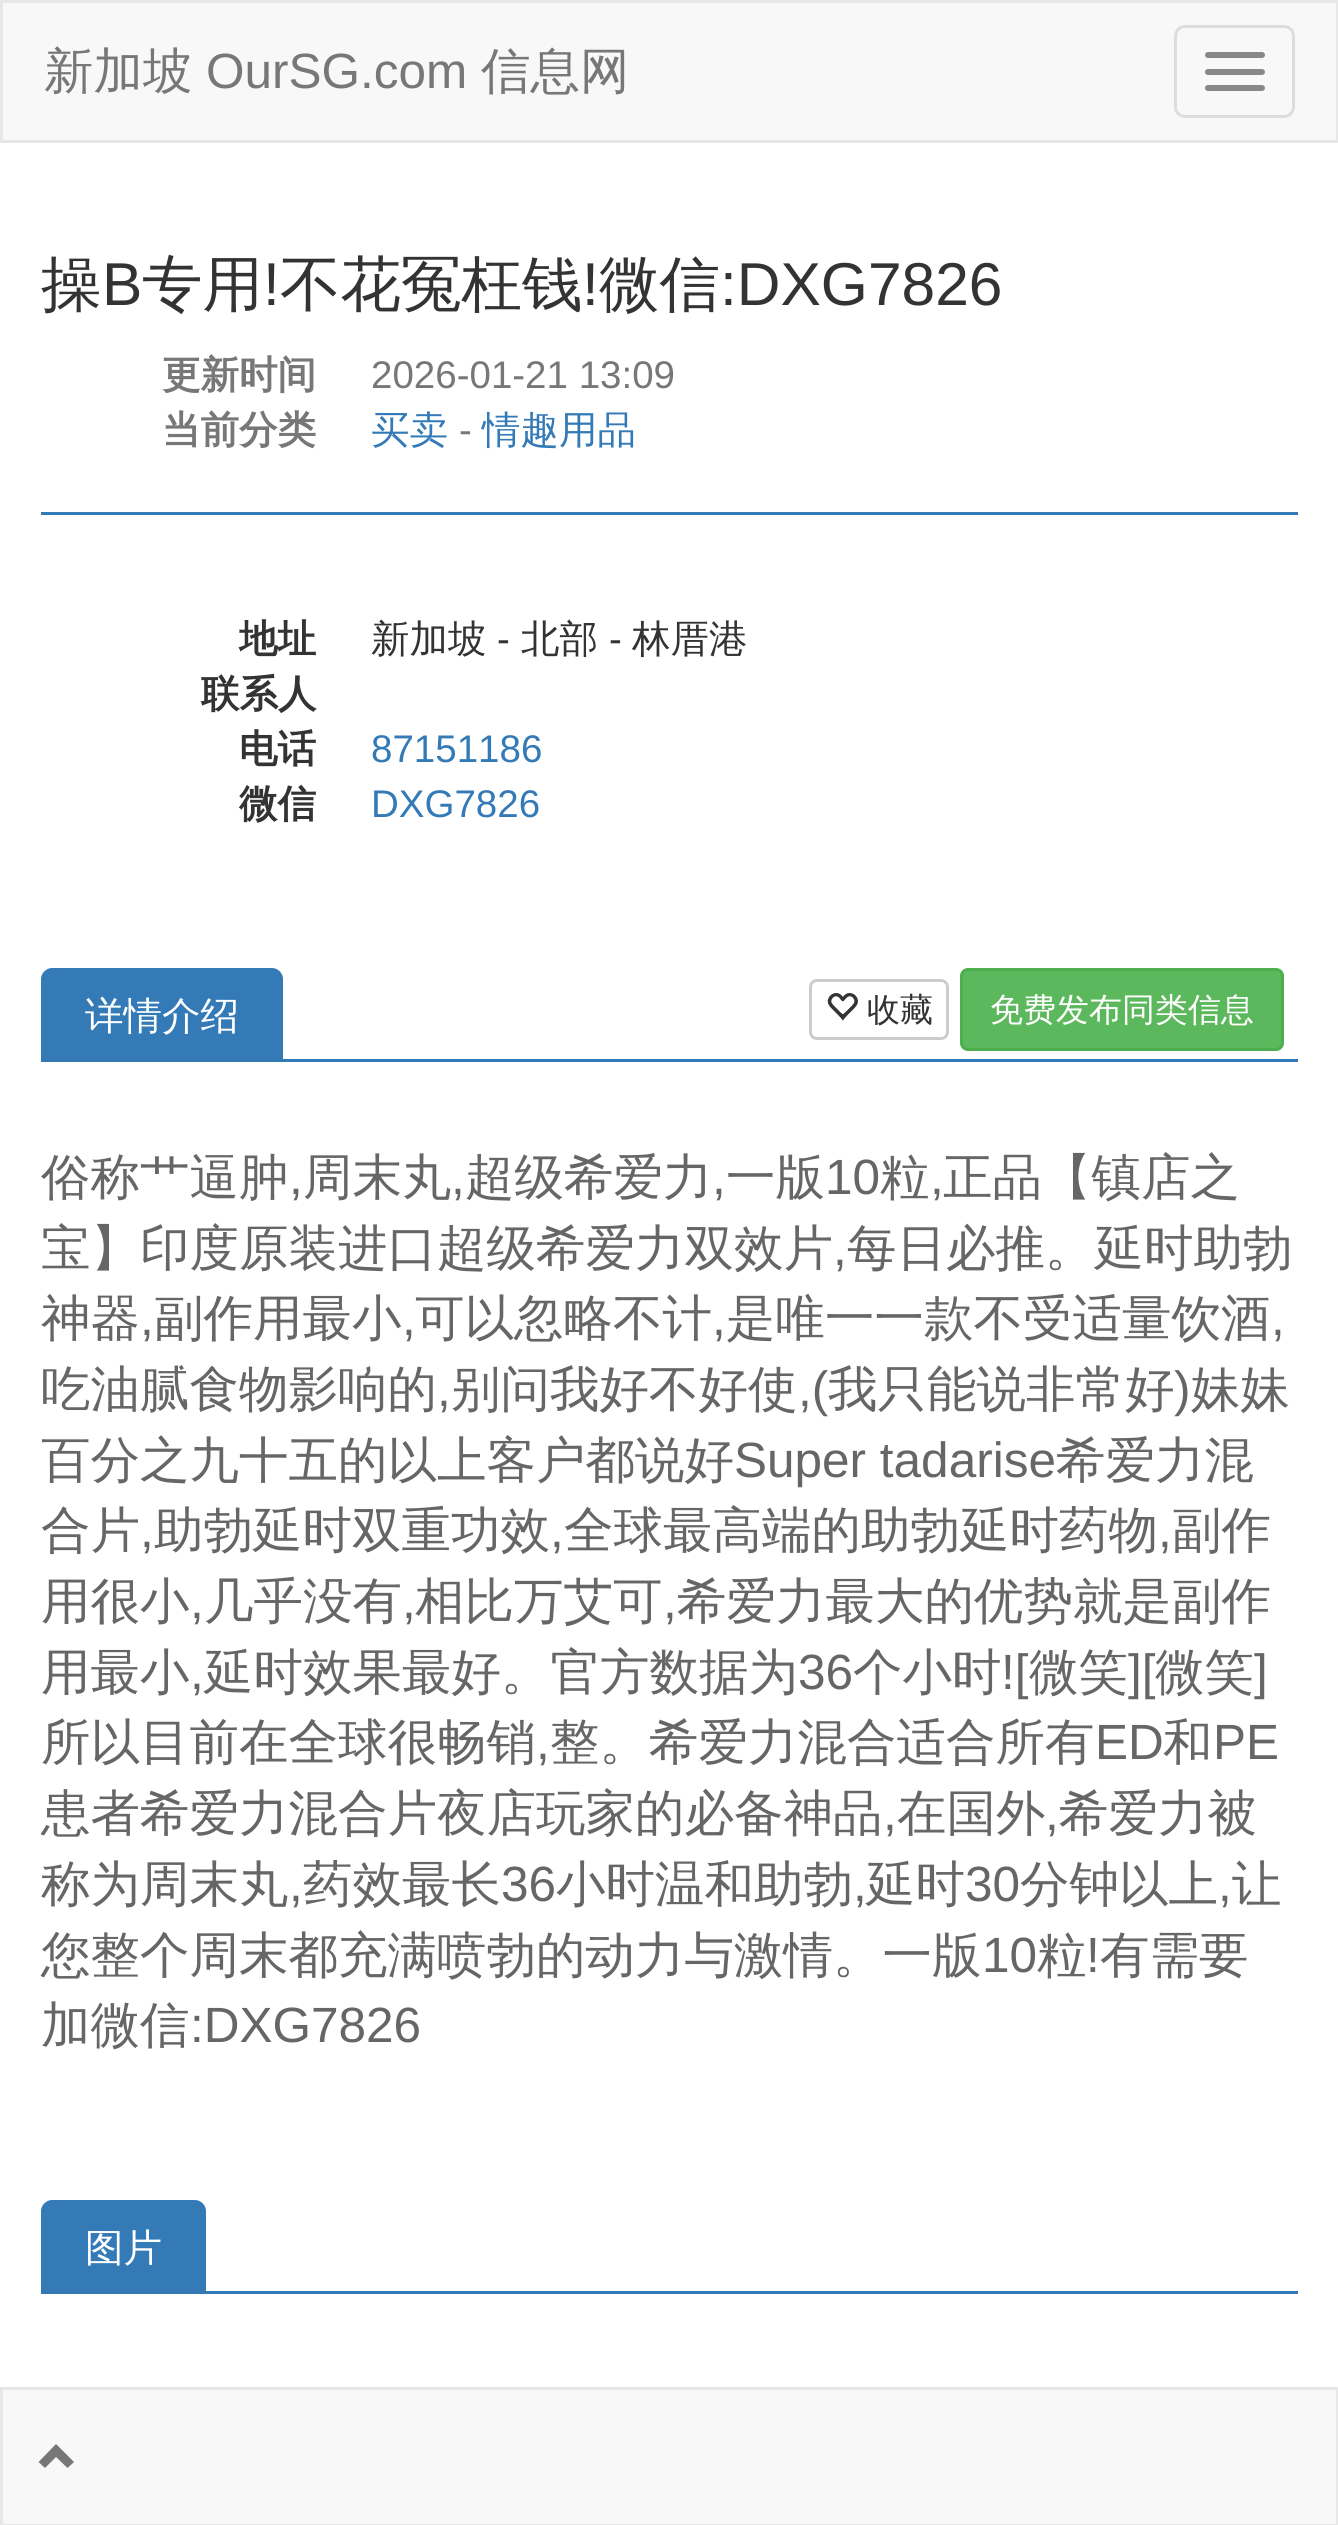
import math
import cairo


def use_color(cr, r, g, b):
  cr.set_source_rgb(r / 255, g / 255, b / 255)

def text(cr, x, y, s, family, size, color, bold=False, italic=False):
  cr.select_font_face(family, cairo.FONT_SLANT_ITALIC if italic else cairo.FONT_SLANT_NORMAL, cairo.FONT_WEIGHT_BOLD if bold else cairo.FONT_WEIGHT_NORMAL)
  cr.set_font_size(size)
  use_color(cr, *color)
  cr.move_to(x, y)
  cr.show_text(s)

def box(cr, x, y, w, h, *color):
  use_color(cr, *color)
  cr.rectangle(x, y, w, h)
  cr.fill()

def round_rect(cr, x, y, w, h, r):
  cr.new_sub_path()
  for i, (u, v) in enumerate([(x + w - r, y + h - r), (x + r, y + h - r), (x + r, y + r), (x + w - r, y + r)]):
    cr.arc(u, v, r, i * math.pi / 2, (i + 1) * math.pi / 2)
  cr.close_path()

def picture(cr, path, x, y, w, h):
  cr.save()
  cr.set_source_surface(cairo.ImageSurface.create_from_png(path), x, y)
  cr.rectangle(x, y, w, h)
  cr.fill()
  cr.restore()

def draw(cr):
  use_color(cr, 255, 255, 255)
  cr.paint()
  use_color(cr, 248, 248, 248)
  cr.rectangle(1.5, 1.5, 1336, 140)
  cr.fill_preserve()
  use_color(cr, 231, 231, 231)
  cr.set_line_width(3)
  cr.stroke()
  round_rect(cr, 1175.5, 26.5, 118, 90, 9.5)
  use_color(cr, 221, 221, 221)
  cr.stroke()
  use_color(cr, 136, 136, 136)
  round_rect(cr, 1205, 52, 60, 6, 3)
  cr.fill()
  round_rect(cr, 1205, 69, 60, 6, 3)
  cr.fill()
  round_rect(cr, 1205, 85, 60, 6, 3)
  cr.fill()
  box(cr, 41, 512, 1257, 3, 51, 122, 183)
  round_rect(cr, 810.5, 980.5, 137, 58, 6.5)
  use_color(cr, 204, 204, 204)
  cr.stroke()
  picture(cr, "img_01.png", 827, 993, 31, 28)
  use_color(cr, 92, 184, 92)
  round_rect(cr, 961.5, 969.5, 321, 80, 6.5)
  cr.fill_preserve()
  use_color(cr, 76, 174, 76)
  cr.stroke()
  box(cr, 283, 1059, 1015, 3, 51, 122, 183)
  cr.new_path()
  cr.move_to(52, 969.5)
  cr.line_to(272, 969.5)
  cr.curve_to(277, 969.5, 281.5, 974, 281.5, 979)
  cr.line_to(281.5, 1060.5)
  cr.line_to(42.5, 1060.5)
  cr.line_to(42.5, 979)
  cr.curve_to(42.5, 974, 47, 969.5, 52, 969.5)
  cr.close_path()
  cr.fill_preserve()
  cr.stroke()
  box(cr, 206, 2291, 1092, 3, 51, 122, 183)
  cr.new_path()
  cr.move_to(52, 2201.5)
  cr.line_to(195, 2201.5)
  cr.curve_to(200, 2201.5, 204.5, 2206, 204.5, 2211)
  cr.line_to(204.5, 2292.5)
  cr.line_to(42.5, 2292.5)
  cr.line_to(42.5, 2211)
  cr.curve_to(42.5, 2206, 47, 2201.5, 52, 2201.5)
  cr.close_path()
  cr.fill_preserve()
  cr.stroke()
  use_color(cr, 248, 248, 248)
  cr.rectangle(1.5, 2388.5, 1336, 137)
  cr.fill_preserve()
  use_color(cr, 231, 231, 231)
  cr.stroke()
  use_color(cr, 119, 119, 119)
  cr.new_path()
  cr.move_to(74, 2462)
  cr.line_to(67.5, 2468)
  cr.line_to(56, 2457)
  cr.line_to(45, 2468)
  cr.line_to(38.5, 2462)
  cr.line_to(56, 2444)
  cr.close_path()
  cr.fill()
  text(cr, 44, 88, "新加坡", "WenQuanYi Zen Hei Medium", 49.5, (119, 119, 119))
  text(cr, 206, 88, "OurSG.com", "Liberation Sans", 49.5, (119, 119, 119))
  text(cr, 481, 88, "信息网", "WenQuanYi Zen Hei Medium", 49.5, (119, 119, 119))
  text(cr, 41, 305, "操", "WenQuanYi Zen Hei Medium", 60.5, (51, 51, 51))
  text(cr, 102, 305, "B", "Liberation Sans", 60.5, (51, 51, 51))
  text(cr, 142, 305, "专用", "WenQuanYi Zen Hei Medium", 60.5, (51, 51, 51))
  text(cr, 263, 305, "!", "Liberation Sans", 60.5, (51, 51, 51))
  text(cr, 280, 305, "不花冤枉钱", "WenQuanYi Zen Hei Medium", 60.5, (51, 51, 51))
  text(cr, 582, 305, "!", "Liberation Sans", 60.5, (51, 51, 51))
  text(cr, 599, 305, "微信", "WenQuanYi Zen Hei Medium", 60.5, (51, 51, 51))
  text(cr, 720, 305, ":DXG7826", "Liberation Sans", 60.5, (51, 51, 51))
  text(cr, 162, 388, "更新时间", "WenQuanYi Zen Hei", 38.5, (119, 119, 119), bold=True)
  text(cr, 371, 388, "2026-01-21 13:09", "Liberation Sans", 38.5, (119, 119, 119))
  text(cr, 162, 443, "当前分类", "WenQuanYi Zen Hei", 38.5, (119, 119, 119), bold=True)
  text(cr, 371, 443, "买卖", "WenQuanYi Zen Hei Medium", 38.5, (51, 122, 183))
  text(cr, 459, 443, "-", "Liberation Sans", 38.5, (119, 119, 119))
  text(cr, 482, 443, "情趣用品", "WenQuanYi Zen Hei Medium", 38.5, (51, 122, 183))
  text(cr, 239, 652, "地址", "WenQuanYi Zen Hei", 38.5, (51, 51, 51), bold=True)
  text(cr, 371, 652, "新加坡", "WenQuanYi Zen Hei Medium", 38.5, (51, 51, 51))
  text(cr, 497, 652, "-", "Liberation Sans", 38.5, (51, 51, 51))
  text(cr, 521, 652, "北部", "WenQuanYi Zen Hei Medium", 38.5, (51, 51, 51))
  text(cr, 609, 652, "-", "Liberation Sans", 38.5, (51, 51, 51))
  text(cr, 632, 652, "林厝港", "WenQuanYi Zen Hei Medium", 38.5, (51, 51, 51))
  text(cr, 201, 707, "联系人", "WenQuanYi Zen Hei", 38.5, (51, 51, 51), bold=True)
  text(cr, 239, 762, "电话", "WenQuanYi Zen Hei", 38.5, (51, 51, 51), bold=True)
  text(cr, 371, 762, "87151186", "Liberation Sans", 38.5, (51, 122, 183))
  text(cr, 239, 817, "微信", "WenQuanYi Zen Hei", 38.5, (51, 51, 51), bold=True)
  text(cr, 371, 817, "DXG7826", "Liberation Sans", 38.5, (51, 122, 183))
  text(cr, 867, 1021, "收藏", "WenQuanYi Zen Hei Medium", 33, (51, 51, 51))
  text(cr, 990, 1021, "免费发布同类信息", "WenQuanYi Zen Hei Medium", 33, (255, 255, 255))
  text(cr, 85, 1029, "详情介绍", "WenQuanYi Zen Hei Medium", 38.5, (255, 255, 255))
  text(cr, 41, 1194, "俗称艹逼肿", "WenQuanYi Zen Hei Medium", 49.5, (102, 102, 102))
  text(cr, 289, 1194, ",", "Liberation Sans", 49.5, (102, 102, 102))
  text(cr, 303, 1194, "周末丸", "WenQuanYi Zen Hei Medium", 49.5, (102, 102, 102))
  text(cr, 451, 1194, ",", "Liberation Sans", 49.5, (102, 102, 102))
  text(cr, 465, 1194, "超级希爱力", "WenQuanYi Zen Hei Medium", 49.5, (102, 102, 102))
  text(cr, 712, 1194, ",", "Liberation Sans", 49.5, (102, 102, 102))
  text(cr, 726, 1194, "一版", "WenQuanYi Zen Hei Medium", 49.5, (102, 102, 102))
  text(cr, 825, 1194, "10", "Liberation Sans", 49.5, (102, 102, 102))
  text(cr, 880, 1194, "粒", "WenQuanYi Zen Hei Medium", 49.5, (102, 102, 102))
  text(cr, 930, 1194, ",", "Liberation Sans", 49.5, (102, 102, 102))
  text(cr, 943, 1194, "正品【镇店之", "WenQuanYi Zen Hei Medium", 49.5, (102, 102, 102))
  text(cr, 41, 1265, "宝】印度原装进口超级希爱力双效片", "WenQuanYi Zen Hei Medium", 49.5, (102, 102, 102))
  text(cr, 833, 1265, ",", "Liberation Sans", 49.5, (102, 102, 102))
  text(cr, 847, 1265, "每日必推。延时助勃", "WenQuanYi Zen Hei Medium", 49.5, (102, 102, 102))
  text(cr, 41, 1335, "神器", "WenQuanYi Zen Hei Medium", 49.5, (102, 102, 102))
  text(cr, 140, 1335, ",", "Liberation Sans", 49.5, (102, 102, 102))
  text(cr, 154, 1335, "副作用最小", "WenQuanYi Zen Hei Medium", 49.5, (102, 102, 102))
  text(cr, 402, 1335, ",", "Liberation Sans", 49.5, (102, 102, 102))
  text(cr, 415, 1335, "可以忽略不计", "WenQuanYi Zen Hei Medium", 49.5, (102, 102, 102))
  text(cr, 712, 1335, ",", "Liberation Sans", 49.5, (102, 102, 102))
  text(cr, 726, 1335, "是唯一一款不受适量饮酒", "WenQuanYi Zen Hei Medium", 49.5, (102, 102, 102))
  text(cr, 1271, 1335, ",", "Liberation Sans", 49.5, (102, 102, 102))
  text(cr, 41, 1406, "吃油腻食物影响的", "WenQuanYi Zen Hei Medium", 49.5, (102, 102, 102))
  text(cr, 437, 1406, ",", "Liberation Sans", 49.5, (102, 102, 102))
  text(cr, 451, 1406, "别问我好不好使", "WenQuanYi Zen Hei Medium", 49.5, (102, 102, 102))
  text(cr, 798, 1406, ",(", "Liberation Sans", 49.5, (102, 102, 102))
  text(cr, 828, 1406, "我只能说非常好", "WenQuanYi Zen Hei Medium", 49.5, (102, 102, 102))
  text(cr, 1174, 1406, ")", "Liberation Sans", 49.5, (102, 102, 102))
  text(cr, 1191, 1406, "妹妹", "WenQuanYi Zen Hei Medium", 49.5, (102, 102, 102))
  text(cr, 41, 1477, "百分之九十五的以上客户都说好", "WenQuanYi Zen Hei Medium", 49.5, (102, 102, 102))
  text(cr, 734, 1477, "Super tadarise", "Liberation Sans", 49.5, (102, 102, 102))
  text(cr, 1056, 1477, "希爱力混", "WenQuanYi Zen Hei Medium", 49.5, (102, 102, 102))
  text(cr, 41, 1547, "合片", "WenQuanYi Zen Hei Medium", 49.5, (102, 102, 102))
  text(cr, 140, 1547, ",", "Liberation Sans", 49.5, (102, 102, 102))
  text(cr, 154, 1547, "助勃延时双重功效", "WenQuanYi Zen Hei Medium", 49.5, (102, 102, 102))
  text(cr, 550, 1547, ",", "Liberation Sans", 49.5, (102, 102, 102))
  text(cr, 564, 1547, "全球最高端的助勃延时药物", "WenQuanYi Zen Hei Medium", 49.5, (102, 102, 102))
  text(cr, 1158, 1547, ",", "Liberation Sans", 49.5, (102, 102, 102))
  text(cr, 1172, 1547, "副作", "WenQuanYi Zen Hei Medium", 49.5, (102, 102, 102))
  text(cr, 41, 1618, "用很小", "WenQuanYi Zen Hei Medium", 49.5, (102, 102, 102))
  text(cr, 190, 1618, ",", "Liberation Sans", 49.5, (102, 102, 102))
  text(cr, 204, 1618, "几乎没有", "WenQuanYi Zen Hei Medium", 49.5, (102, 102, 102))
  text(cr, 402, 1618, ",", "Liberation Sans", 49.5, (102, 102, 102))
  text(cr, 415, 1618, "相比万艾可", "WenQuanYi Zen Hei Medium", 49.5, (102, 102, 102))
  text(cr, 663, 1618, ",", "Liberation Sans", 49.5, (102, 102, 102))
  text(cr, 677, 1618, "希爱力最大的优势就是副作", "WenQuanYi Zen Hei Medium", 49.5, (102, 102, 102))
  text(cr, 41, 1689, "用最小", "WenQuanYi Zen Hei Medium", 49.5, (102, 102, 102))
  text(cr, 190, 1689, ",", "Liberation Sans", 49.5, (102, 102, 102))
  text(cr, 204, 1689, "延时效果最好。官方数据为", "WenQuanYi Zen Hei Medium", 49.5, (102, 102, 102))
  text(cr, 798, 1689, "36", "Liberation Sans", 49.5, (102, 102, 102))
  text(cr, 853, 1689, "个小时", "WenQuanYi Zen Hei Medium", 49.5, (102, 102, 102))
  text(cr, 1001, 1689, "![", "Liberation Sans", 49.5, (102, 102, 102))
  text(cr, 1029, 1689, "微笑", "WenQuanYi Zen Hei Medium", 49.5, (102, 102, 102))
  text(cr, 1128, 1689, "][", "Liberation Sans", 49.5, (102, 102, 102))
  text(cr, 1155, 1689, "微笑", "WenQuanYi Zen Hei Medium", 49.5, (102, 102, 102))
  text(cr, 1254, 1689, "]", "Liberation Sans", 49.5, (102, 102, 102))
  text(cr, 41, 1759, "所以目前在全球很畅销", "WenQuanYi Zen Hei Medium", 49.5, (102, 102, 102))
  text(cr, 536, 1759, ",", "Liberation Sans", 49.5, (102, 102, 102))
  text(cr, 550, 1759, "整。希爱力混合适合所有", "WenQuanYi Zen Hei Medium", 49.5, (102, 102, 102))
  text(cr, 1095, 1759, "ED", "Liberation Sans", 49.5, (102, 102, 102))
  text(cr, 1163, 1759, "和", "WenQuanYi Zen Hei Medium", 49.5, (102, 102, 102))
  text(cr, 1213, 1759, "PE", "Liberation Sans", 49.5, (102, 102, 102))
  text(cr, 41, 1830, "患者希爱力混合片夜店玩家的必备神品", "WenQuanYi Zen Hei Medium", 49.5, (102, 102, 102))
  text(cr, 883, 1830, ",", "Liberation Sans", 49.5, (102, 102, 102))
  text(cr, 897, 1830, "在国外", "WenQuanYi Zen Hei Medium", 49.5, (102, 102, 102))
  text(cr, 1045, 1830, ",", "Liberation Sans", 49.5, (102, 102, 102))
  text(cr, 1059, 1830, "希爱力被", "WenQuanYi Zen Hei Medium", 49.5, (102, 102, 102))
  text(cr, 41, 1901, "称为周末丸", "WenQuanYi Zen Hei Medium", 49.5, (102, 102, 102))
  text(cr, 289, 1901, ",", "Liberation Sans", 49.5, (102, 102, 102))
  text(cr, 303, 1901, "药效最长", "WenQuanYi Zen Hei Medium", 49.5, (102, 102, 102))
  text(cr, 501, 1901, "36", "Liberation Sans", 49.5, (102, 102, 102))
  text(cr, 556, 1901, "小时温和助勃", "WenQuanYi Zen Hei Medium", 49.5, (102, 102, 102))
  text(cr, 853, 1901, ",", "Liberation Sans", 49.5, (102, 102, 102))
  text(cr, 866, 1901, "延时", "WenQuanYi Zen Hei Medium", 49.5, (102, 102, 102))
  text(cr, 965, 1901, "30", "Liberation Sans", 49.5, (102, 102, 102))
  text(cr, 1020, 1901, "分钟以上", "WenQuanYi Zen Hei Medium", 49.5, (102, 102, 102))
  text(cr, 1218, 1901, ",", "Liberation Sans", 49.5, (102, 102, 102))
  text(cr, 1232, 1901, "让", "WenQuanYi Zen Hei Medium", 49.5, (102, 102, 102))
  text(cr, 41, 1972, "您整个周末都充满喷勃的动力与激情。一版", "WenQuanYi Zen Hei Medium", 49.5, (102, 102, 102))
  text(cr, 982, 1972, "10", "Liberation Sans", 49.5, (102, 102, 102))
  text(cr, 1037, 1972, "粒", "WenQuanYi Zen Hei Medium", 49.5, (102, 102, 102))
  text(cr, 1086, 1972, "!", "Liberation Sans", 49.5, (102, 102, 102))
  text(cr, 1100, 1972, "有需要", "WenQuanYi Zen Hei Medium", 49.5, (102, 102, 102))
  text(cr, 41, 2042, "加微信", "WenQuanYi Zen Hei Medium", 49.5, (102, 102, 102))
  text(cr, 190, 2042, ":DXG7826", "Liberation Sans", 49.5, (102, 102, 102))
  text(cr, 85, 2261, "图片", "WenQuanYi Zen Hei Medium", 38.5, (255, 255, 255))


surface = cairo.ImageSurface(cairo.FORMAT_RGB24, 1338, 2525)
cr = cairo.Context(surface)
options = cairo.FontOptions()
options.set_hint_metrics(cairo.HINT_METRICS_OFF)
options.set_hint_style(cairo.HINT_STYLE_NONE)
cr.set_font_options(options)
cr.set_miter_limit(4)
draw(cr)
surface.write_to_png("out.png")
